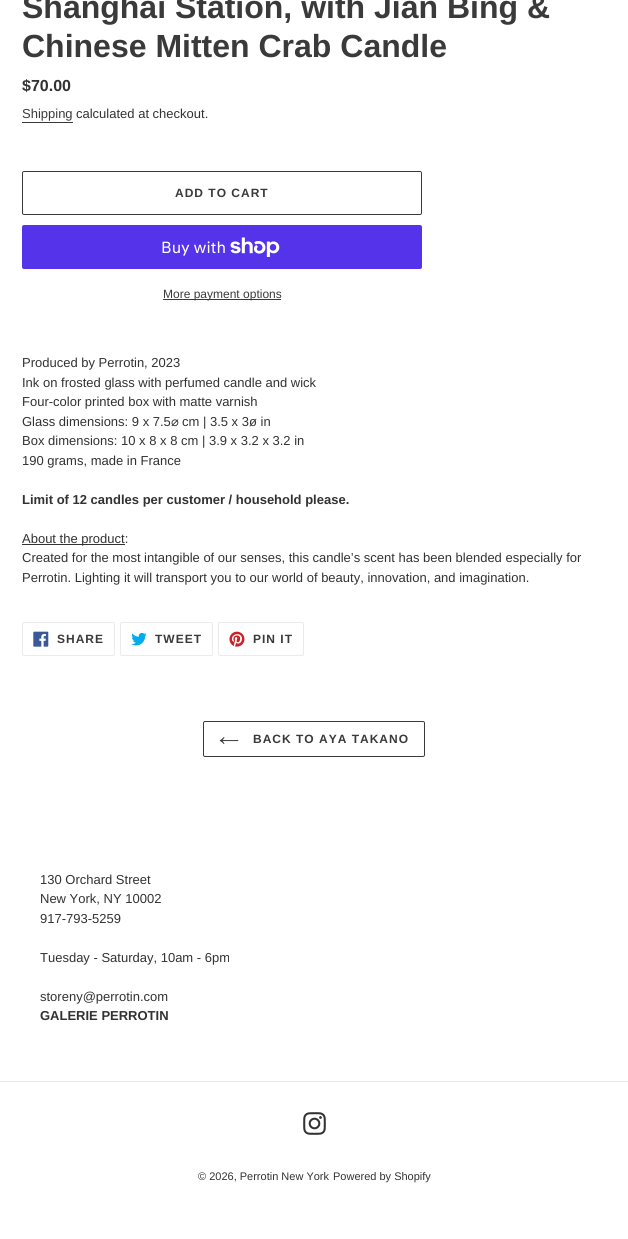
import math
import cairo


def use_color(cr, r, g, b):
  cr.set_source_rgb(r / 255, g / 255, b / 255)

def text(cr, x, y, s, family, size, color, bold=False, italic=False):
  cr.select_font_face(family, cairo.FONT_SLANT_ITALIC if italic else cairo.FONT_SLANT_NORMAL, cairo.FONT_WEIGHT_BOLD if bold else cairo.FONT_WEIGHT_NORMAL)
  cr.set_font_size(size)
  use_color(cr, *color)
  cr.move_to(x, y)
  cr.show_text(s)

def spaced_text(cr, x, y, s, letter, word):
  cr.move_to(x, y)
  for ch in s:
    cr.show_text(ch)
    cr.rel_move_to(letter + word * (ch == ' '), 0)

def box(cr, x, y, w, h, *color):
  use_color(cr, *color)
  cr.rectangle(x, y, w, h)
  cr.fill()

def round_rect(cr, x, y, w, h, r):
  cr.new_sub_path()
  for i, (u, v) in enumerate([(x + w - r, y + h - r), (x + r, y + h - r), (x + r, y + r), (x + w - r, y + r)]):
    cr.arc(u, v, r, i * math.pi / 2, (i + 1) * math.pi / 2)
  cr.close_path()

def picture(cr, path, x, y, w, h):
  cr.save()
  cr.set_source_surface(cairo.ImageSurface.create_from_png(path), x, y)
  cr.rectangle(x, y, w, h)
  cr.fill()
  cr.restore()

def draw(cr):
  use_color(cr, 255, 255, 255)
  cr.paint()
  box(cr, 22, 122, 51, 1, 58, 58, 58)
  round_rect(cr, 22.5, 171.5, 399, 43, 1.5)
  cr.set_line_width(1)
  cr.stroke()
  use_color(cr, 84, 51, 235)
  round_rect(cr, 22, 225, 400, 44, 2)
  cr.fill()
  picture(cr, "img_01.png", 230, 237, 50, 20)
  box(cr, 163, 299, 118, 1, 58, 58, 58)
  box(cr, 22, 544, 103, 1, 51, 50, 50)
  round_rect(cr, 22.5, 622.5, 92, 33, 1.5)
  use_color(cr, 235, 235, 235)
  cr.stroke()
  picture(cr, "img_02.png", 33, 631, 16, 16)
  round_rect(cr, 120.5, 622.5, 92, 33, 1.5)
  cr.stroke()
  picture(cr, "img_03.png", 131, 632, 16, 14)
  round_rect(cr, 218.5, 622.5, 85, 33, 1.5)
  cr.stroke()
  picture(cr, "img_04.png", 229, 631, 16, 16)
  round_rect(cr, 203.5, 721.5, 221, 35, 1.5)
  use_color(cr, 58, 58, 58)
  cr.stroke()
  picture(cr, "img_05.png", 219, 737, 20, 8)
  box(cr, 0, 1081, 628, 1, 230, 230, 230)
  picture(cr, "img_06.png", 303, 1112, 23, 23)
  text(cr, 22, 18, "Shanghai Station, with Jian Bing &", "Liberation Sans", 32, (58, 58, 58), bold=True)
  text(cr, 22, 57, "Chinese Mitten Crab Candle", "Liberation Sans", 32, (58, 58, 58), bold=True)
  text(cr, 22, 91, "$70.00", "Liberation Sans", 16, (51, 50, 50), bold=True)
  text(cr, 22, 118, "Shipping", "Liberation Sans", 13, (58, 58, 58))
  text(cr, 76, 118, "calculated at checkout.", "Liberation Sans", 13, (51, 50, 50))
  cr.select_font_face("Liberation Sans", cairo.FONT_SLANT_NORMAL, cairo.FONT_WEIGHT_BOLD)
  cr.set_font_size(12)
  use_color(cr, 58, 58, 58)
  spaced_text(cr, 175, 197, "ADD TO CART", 1, 0)
  text(cr, 161, 253, "Buy with", "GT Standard", 16, (255, 255, 255))
  text(cr, 163, 298, "More payment options", "Liberation Sans", 12, (58, 58, 58))
  text(cr, 22, 367, "Produced by Perrotin, 2023", "Liberation Sans", 13, (51, 50, 50))
  text(cr, 22, 387, "Ink on frosted glass with perfumed candle and wick", "Liberation Sans", 13, (51, 50, 50))
  text(cr, 22, 406, "Four-color printed box with matte varnish", "Liberation Sans", 13, (51, 50, 50))
  text(cr, 22, 426, "Glass dimensions: 9 x 7.5", "Liberation Sans", 13, (51, 50, 50))
  text(cr, 171, 426, "⌀", "DejaVu Sans", 13, (51, 50, 50))
  text(cr, 182, 426, "cm | 3.5 x 3ø in", "Liberation Sans", 13, (51, 50, 50))
  text(cr, 22, 445, "Box dimensions: 10 x 8 x 8 cm | 3.9 x 3.2 x 3.2 in", "Liberation Sans", 13, (51, 50, 50))
  text(cr, 22, 465, "190 grams, made in France", "Liberation Sans", 13, (51, 50, 50))
  text(cr, 22, 504, "Limit of 12 candles per customer / household please.", "Liberation Sans", 13, (51, 50, 50), bold=True)
  text(cr, 22, 543, "About the product:", "Liberation Sans", 13, (51, 50, 50))
  text(cr, 22, 562, "Created for the most intangible of our senses, this candle’s scent has been blended especially for", "Liberation Sans", 13, (51, 50, 50))
  text(cr, 22, 582, "Perrotin. Lighting it will transport you to our world of beauty, innovation, and imagination.", "Liberation Sans", 13, (51, 50, 50))
  cr.select_font_face("Liberation Sans", cairo.FONT_SLANT_NORMAL, cairo.FONT_WEIGHT_BOLD)
  cr.set_font_size(12)
  use_color(cr, 58, 58, 58)
  spaced_text(cr, 57, 643, "SHARE", 1, 0)
  spaced_text(cr, 155, 643, "TWEET", 1, 0)
  spaced_text(cr, 253, 643, "PIN IT", 1, 0)
  spaced_text(cr, 253, 743, "BACK TO AYA TAKANO", 1, 0)
  text(cr, 40, 884, "130 Orchard Street", "Liberation Sans", 13, (51, 50, 50))
  text(cr, 40, 903, "New York, NY 10002", "Liberation Sans", 13, (51, 50, 50))
  text(cr, 40, 923, "917-793-5259", "Liberation Sans", 13, (51, 50, 50))
  text(cr, 40, 962, "Tuesday - Saturday, 10am - 6pm", "Liberation Sans", 13, (51, 50, 50))
  text(cr, 40, 1001, "storeny@perrotin.com", "Liberation Sans", 13, (51, 50, 50))
  text(cr, 40, 1020, "GALERIE PERROTIN", "Liberation Sans", 13, (51, 50, 50), bold=True)
  text(cr, 198, 1180, "© 2026, Perrotin New York", "Liberation Sans", 11, (51, 50, 50))
  text(cr, 333, 1180, "Powered by Shopify", "Liberation Sans", 11, (51, 50, 50))


surface = cairo.ImageSurface(cairo.FORMAT_RGB24, 628, 1239)
cr = cairo.Context(surface)
options = cairo.FontOptions()
options.set_hint_metrics(cairo.HINT_METRICS_OFF)
options.set_hint_style(cairo.HINT_STYLE_NONE)
cr.set_font_options(options)
cr.set_miter_limit(4)
draw(cr)
surface.write_to_png("out.png")
